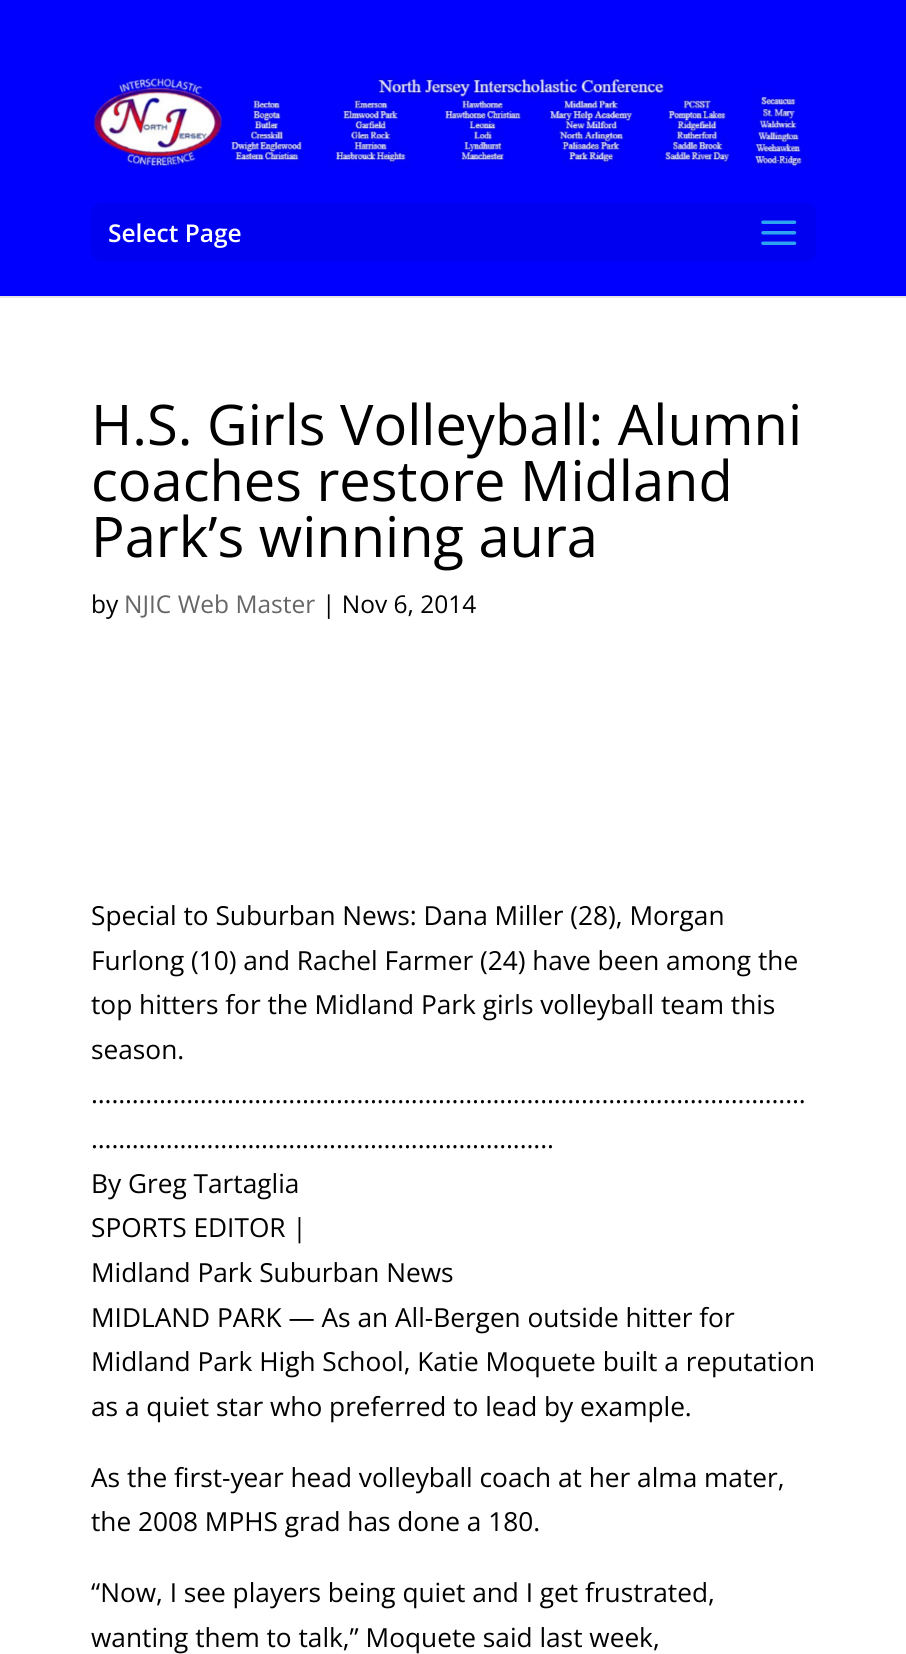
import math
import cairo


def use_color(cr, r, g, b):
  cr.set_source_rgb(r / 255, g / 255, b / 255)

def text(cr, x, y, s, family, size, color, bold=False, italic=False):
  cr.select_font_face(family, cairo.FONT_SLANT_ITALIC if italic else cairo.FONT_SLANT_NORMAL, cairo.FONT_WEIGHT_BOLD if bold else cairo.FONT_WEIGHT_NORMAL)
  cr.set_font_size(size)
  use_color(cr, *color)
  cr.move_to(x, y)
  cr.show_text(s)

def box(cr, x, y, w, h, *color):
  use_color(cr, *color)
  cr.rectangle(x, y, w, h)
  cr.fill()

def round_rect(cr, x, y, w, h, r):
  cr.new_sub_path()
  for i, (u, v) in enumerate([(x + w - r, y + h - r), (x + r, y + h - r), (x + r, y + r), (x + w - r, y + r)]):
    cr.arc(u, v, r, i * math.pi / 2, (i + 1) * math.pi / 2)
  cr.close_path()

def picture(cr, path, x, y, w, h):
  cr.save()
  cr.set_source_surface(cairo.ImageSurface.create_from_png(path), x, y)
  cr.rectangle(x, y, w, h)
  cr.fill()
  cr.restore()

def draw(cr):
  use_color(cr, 255, 255, 255)
  cr.paint()
  use_color(cr, 230, 230, 230)
  cr.new_path()
  cr.move_to(0, 296)
  cr.line_to(0, 298)
  cr.line_to(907, 298)
  cr.line_to(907, 2)
  cr.line_to(906, 2)
  cr.line_to(906, 296)
  cr.close_path()
  cr.fill()
  box(cr, 0, 0, 906, 296, 0, 0, 254)
  picture(cr, "img_01.png", 91, 75, 720, 93)
  use_color(cr, 0, 0, 241)
  round_rect(cr, 91, 203, 725, 58, 9)
  cr.fill()
  picture(cr, "img_02.png", 761, 220, 36, 25)
  text(cr, 108, 242, "Select Page", "Open Sans SemiBold", 24.5, (255, 255, 255))
  text(cr, 91, 445, "H.S. Girls Volleyball: Alumni", "Open Sans", 56, (0, 0, 0))
  text(cr, 91, 501, "coaches restore Midland", "Open Sans", 56, (0, 0, 0))
  text(cr, 91, 557, "Park’s winning aura", "Open Sans", 56, (0, 0, 0))
  text(cr, 91, 613, "by", "Open Sans", 24.5, (0, 0, 0))
  text(cr, 124, 613, "NJIC Web Master", "Open Sans", 24.5, (102, 102, 102))
  text(cr, 322, 613, "| Nov 6, 2014", "Open Sans", 24.5, (0, 0, 0))
  text(cr, 91, 925, "Special to Suburban News: Dana Miller (28), Morgan", "Open Sans", 26.25, (0, 0, 0))
  text(cr, 91, 970, "Furlong (10) and Rachel Farmer (24) have been among the", "Open Sans", 26.25, (0, 0, 0))
  text(cr, 91, 1014, "top hitters for the Midland Park girls volleyball team this", "Open Sans", 26.25, (0, 0, 0))
  text(cr, 91, 1059, "season.", "Open Sans", 26.25, (0, 0, 0))
  text(cr, 91, 1103, "……………………………………………………………………………………………", "Open Sans", 26.25, (0, 0, 0))
  text(cr, 91, 1148, "…………………………………………………………..", "Open Sans", 26.25, (0, 0, 0))
  text(cr, 91, 1193, "By Greg Tartaglia", "Open Sans", 26.25, (0, 0, 0))
  text(cr, 91, 1237, "SPORTS EDITOR |", "Open Sans", 26.25, (0, 0, 0))
  text(cr, 91, 1282, "Midland Park Suburban News", "Open Sans", 26.25, (0, 0, 0))
  text(cr, 91, 1327, "MIDLAND PARK — As an All-Bergen outside hitter for", "Open Sans", 26.25, (0, 0, 0))
  text(cr, 91, 1371, "Midland Park High School, Katie Moquete built a reputation", "Open Sans", 26.25, (0, 0, 0))
  text(cr, 91, 1416, "as a quiet star who preferred to lead by example.", "Open Sans", 26.25, (0, 0, 0))
  text(cr, 91, 1487, "As the first-year head volleyball coach at her alma mater,", "Open Sans", 26.25, (0, 0, 0))
  text(cr, 91, 1531, "the 2008 MPHS grad has done a 180.", "Open Sans", 26.25, (0, 0, 0))
  text(cr, 91, 1602, "“Now, I see players being quiet and I get frustrated,", "Open Sans", 26.25, (0, 0, 0))
  text(cr, 91, 1647, "wanting them to talk,” Moquete said last week,", "Open Sans", 26.25, (0, 0, 0))


surface = cairo.ImageSurface(cairo.FORMAT_RGB24, 906, 1654)
cr = cairo.Context(surface)
options = cairo.FontOptions()
options.set_hint_metrics(cairo.HINT_METRICS_OFF)
options.set_hint_style(cairo.HINT_STYLE_NONE)
cr.set_font_options(options)
cr.set_miter_limit(4)
draw(cr)
surface.write_to_png("out.png")
